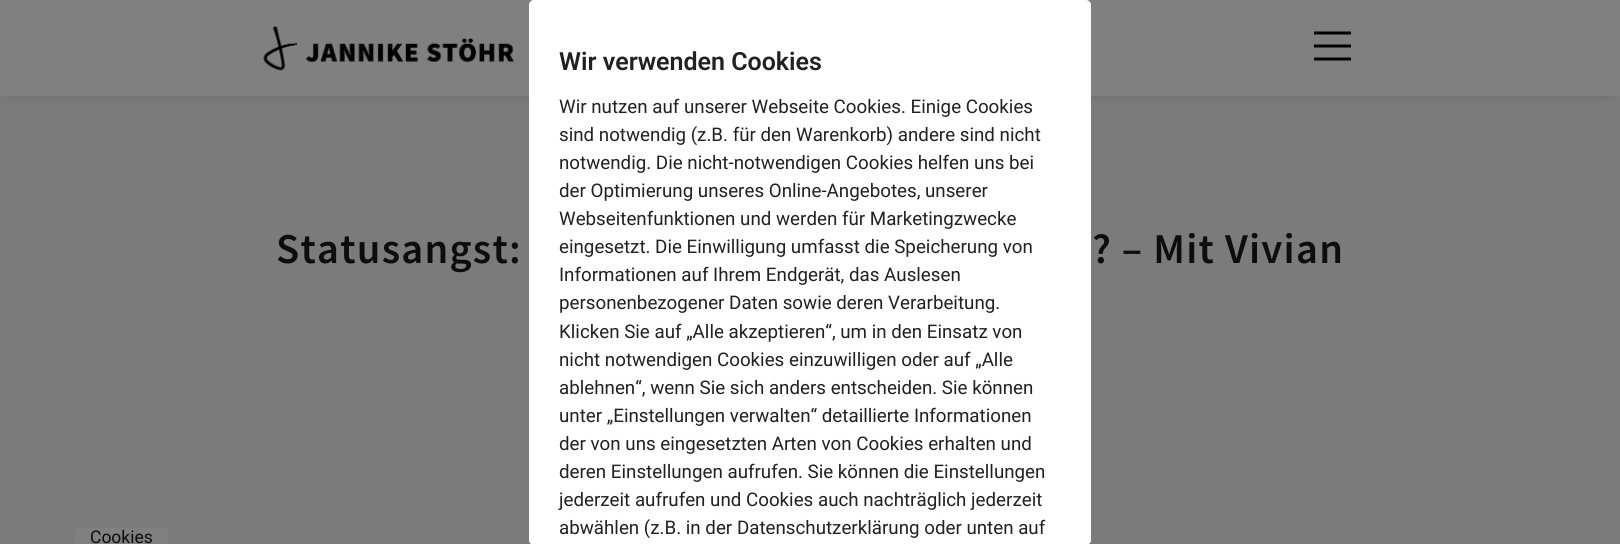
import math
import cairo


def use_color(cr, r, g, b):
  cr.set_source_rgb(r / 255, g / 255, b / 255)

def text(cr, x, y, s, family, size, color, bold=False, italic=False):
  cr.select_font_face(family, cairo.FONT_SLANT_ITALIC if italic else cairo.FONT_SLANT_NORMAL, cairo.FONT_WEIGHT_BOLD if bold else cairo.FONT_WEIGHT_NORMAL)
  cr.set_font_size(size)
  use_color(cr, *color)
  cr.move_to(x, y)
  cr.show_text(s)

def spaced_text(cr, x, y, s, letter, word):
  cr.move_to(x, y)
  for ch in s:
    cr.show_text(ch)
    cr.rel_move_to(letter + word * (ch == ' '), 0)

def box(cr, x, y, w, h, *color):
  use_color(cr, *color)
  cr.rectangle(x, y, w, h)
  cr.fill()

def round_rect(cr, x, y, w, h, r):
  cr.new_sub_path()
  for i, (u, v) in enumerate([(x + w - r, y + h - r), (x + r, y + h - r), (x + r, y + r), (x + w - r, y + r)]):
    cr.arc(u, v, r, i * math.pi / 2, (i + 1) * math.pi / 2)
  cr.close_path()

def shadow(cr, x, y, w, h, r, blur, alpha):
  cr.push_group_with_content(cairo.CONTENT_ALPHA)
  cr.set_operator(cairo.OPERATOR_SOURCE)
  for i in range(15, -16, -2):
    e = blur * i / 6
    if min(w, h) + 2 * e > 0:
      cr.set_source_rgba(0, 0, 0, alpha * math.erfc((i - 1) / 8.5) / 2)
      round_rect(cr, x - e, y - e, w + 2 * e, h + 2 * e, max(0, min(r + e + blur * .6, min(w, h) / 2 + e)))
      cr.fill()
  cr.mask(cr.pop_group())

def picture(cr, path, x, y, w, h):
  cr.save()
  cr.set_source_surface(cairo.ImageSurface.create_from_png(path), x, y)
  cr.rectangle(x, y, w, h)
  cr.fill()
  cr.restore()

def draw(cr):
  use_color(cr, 123, 123, 123)
  cr.paint()
  use_color(cr, 38, 40, 44)
  shadow(cr, 13, 13, 1595, 71, 0, 9.5, 1)
  box(cr, 0, 0, 1620, 96, 128, 128, 128)
  use_color(cr, 255, 255, 255)
  round_rect(cr, 529, 0, 562, 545, 5)
  cr.fill()
  picture(cr, "img_01.png", 263, 26, 251, 45)
  use_color(cr, 0, 0, 0)
  cr.new_path()
  cr.move_to(1314, 31.5)
  cr.line_to(1314, 34.5)
  cr.line_to(1351, 34.5)
  cr.line_to(1351, 31.5)
  cr.close_path()
  cr.move_to(1314, 44.5)
  cr.line_to(1314, 47.5)
  cr.line_to(1351, 47.5)
  cr.line_to(1351, 44.5)
  cr.close_path()
  cr.move_to(1314, 57.5)
  cr.line_to(1314, 60.5)
  cr.line_to(1351, 60.5)
  cr.line_to(1351, 57.5)
  cr.close_path()
  cr.fill()
  use_color(cr, 128, 128, 128)
  cr.new_path()
  cr.move_to(80, 528)
  cr.line_to(163, 528)
  cr.curve_to(166, 528, 168, 530, 168, 533)
  cr.line_to(168, 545)
  cr.line_to(75, 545)
  cr.line_to(75, 533)
  cr.curve_to(75, 530, 77, 528, 80, 528)
  cr.close_path()
  cr.fill()
  text(cr, 559, 70, "Wir verwenden Cookies", "Roboto SemiBold", 25, (33, 33, 33))
  text(cr, 559, 113, "Wir nutzen auf unserer Webseite Cookies. Einige Cookies", "Roboto", 18.75, (33, 33, 33))
  text(cr, 559, 141, "sind notwendig (z.B. für den Warenkorb) andere sind nicht", "Roboto", 18.75, (33, 33, 33))
  text(cr, 559, 169, "notwendig. Die nicht-notwendigen Cookies helfen uns bei", "Roboto", 18.75, (33, 33, 33))
  text(cr, 559, 197, "der Optimierung unseres Online-Angebotes, unserer", "Roboto", 18.75, (33, 33, 33))
  text(cr, 559, 225, "Webseitenfunktionen und werden für Marketingzwecke", "Roboto", 18.75, (33, 33, 33))
  text(cr, 559, 253, "eingesetzt. Die Einwilligung umfasst die Speicherung von", "Roboto", 18.75, (33, 33, 33))
  text(cr, 559, 281, "Informationen auf Ihrem Endgerät, das Auslesen", "Roboto", 18.75, (33, 33, 33))
  text(cr, 559, 309, "personenbezogener Daten sowie deren Verarbeitung.", "Roboto", 18.75, (33, 33, 33))
  text(cr, 559, 338, "Klicken Sie auf „Alle akzeptieren“, um in den Einsatz von", "Roboto", 18.75, (33, 33, 33))
  text(cr, 559, 366, "nicht notwendigen Cookies einzuwilligen oder auf „Alle", "Roboto", 18.75, (33, 33, 33))
  text(cr, 559, 394, "ablehnen“, wenn Sie sich anders entscheiden. Sie können", "Roboto", 18.75, (33, 33, 33))
  text(cr, 559, 422, "unter „Einstellungen verwalten“ detaillierte Informationen", "Roboto", 18.75, (33, 33, 33))
  text(cr, 559, 450, "der von uns eingesetzten Arten von Cookies erhalten und", "Roboto", 18.75, (33, 33, 33))
  text(cr, 559, 478, "deren Einstellungen aufrufen. Sie können die Einstellungen", "Roboto", 18.75, (33, 33, 33))
  text(cr, 559, 506, "jederzeit aufrufen und Cookies auch nachträglich jederzeit", "Roboto", 18.75, (33, 33, 33))
  text(cr, 559, 534, "abwählen (z.B. in der Datenschutzerklärung oder unten auf", "Roboto", 18.75, (33, 33, 33))
  cr.select_font_face("Source Sans Pro SemiBold")
  cr.set_font_size(42.5)
  use_color(cr, 13, 13, 13)
  spaced_text(cr, 276, 263, "Statusangst:", 1.25, 0)
  spaced_text(cr, 1092, 263, "? – Mit Vivian", 1.25, 0)
  text(cr, 90, 543, "Cookies", "Roboto", 17.5, (13, 13, 13))


surface = cairo.ImageSurface(cairo.FORMAT_RGB24, 1620, 544)
cr = cairo.Context(surface)
options = cairo.FontOptions()
options.set_hint_metrics(cairo.HINT_METRICS_OFF)
options.set_hint_style(cairo.HINT_STYLE_NONE)
cr.set_font_options(options)
cr.set_miter_limit(4)
draw(cr)
surface.write_to_png("out.png")
